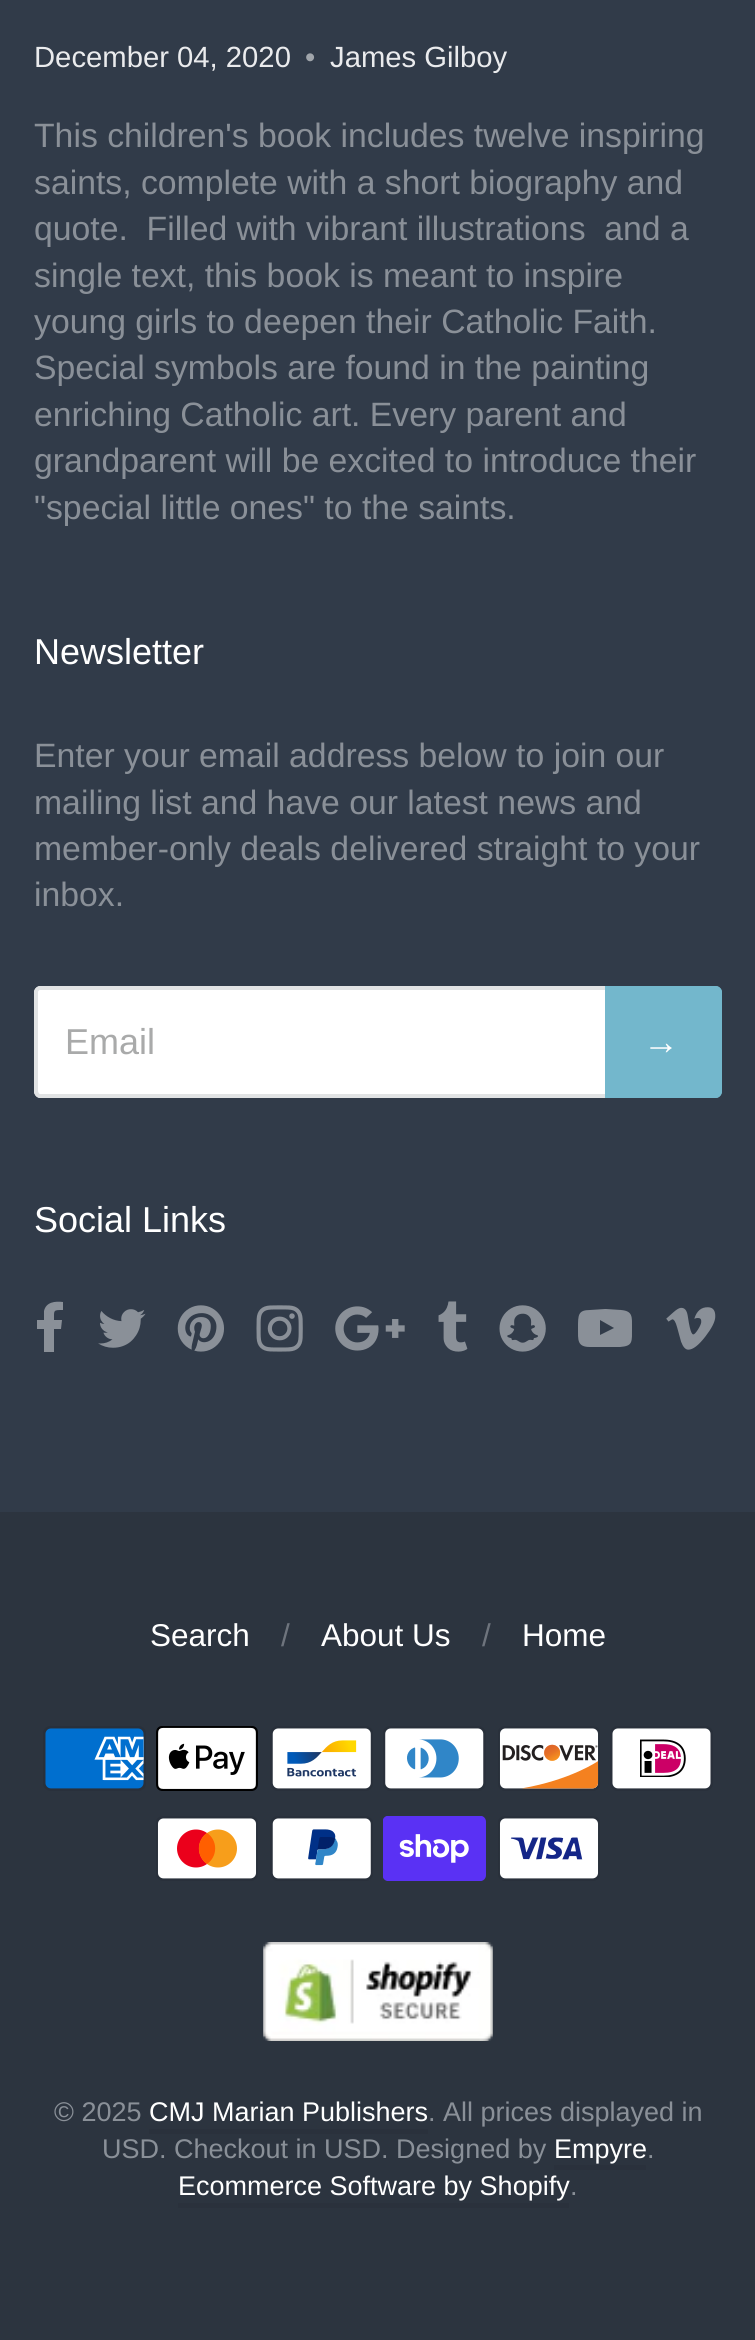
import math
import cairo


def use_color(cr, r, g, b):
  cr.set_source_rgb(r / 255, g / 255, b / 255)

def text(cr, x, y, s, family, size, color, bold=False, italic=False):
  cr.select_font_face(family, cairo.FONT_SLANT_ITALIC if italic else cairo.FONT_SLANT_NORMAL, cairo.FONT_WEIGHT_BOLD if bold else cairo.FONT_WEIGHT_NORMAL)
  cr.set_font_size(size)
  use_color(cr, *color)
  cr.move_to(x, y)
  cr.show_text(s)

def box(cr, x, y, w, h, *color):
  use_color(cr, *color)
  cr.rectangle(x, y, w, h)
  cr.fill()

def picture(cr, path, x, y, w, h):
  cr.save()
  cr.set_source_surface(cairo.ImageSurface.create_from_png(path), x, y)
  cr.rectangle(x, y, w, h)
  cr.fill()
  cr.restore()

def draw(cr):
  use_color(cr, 44, 52, 63)
  cr.paint()
  box(cr, 0, 0, 755, 1512, 49, 59, 73)
  use_color(cr, 255, 255, 255)
  cr.new_path()
  cr.move_to(41, 986)
  cr.line_to(605, 986)
  cr.line_to(605, 1098)
  cr.line_to(41, 1098)
  cr.curve_to(37, 1098, 34, 1095, 34, 1091)
  cr.line_to(34, 993)
  cr.curve_to(34, 989, 37, 986, 41, 986)
  cr.close_path()
  cr.fill()
  use_color(cr, 225, 227, 228)
  cr.set_fill_rule(cairo.FILL_RULE_EVEN_ODD)
  cr.new_path()
  cr.move_to(40, 986)
  cr.line_to(605, 986)
  cr.line_to(605, 1098)
  cr.line_to(40, 1098)
  cr.curve_to(37, 1098, 34, 1095, 34, 1091)
  cr.line_to(34, 992)
  cr.curve_to(34, 989, 37, 986, 40, 986)
  cr.close_path()
  cr.move_to(40, 990)
  cr.line_to(605, 990)
  cr.line_to(605, 1094)
  cr.line_to(40, 1094)
  cr.curve_to(39, 1094, 38, 1092, 38, 1091)
  cr.line_to(38, 992)
  cr.curve_to(38, 991, 39, 990, 40, 990)
  cr.close_path()
  cr.fill()
  use_color(cr, 115, 183, 204)
  cr.new_path()
  cr.move_to(605, 986)
  cr.line_to(715, 986)
  cr.curve_to(719, 986, 722, 989, 722, 993)
  cr.line_to(722, 1091)
  cr.curve_to(722, 1095, 719, 1098, 715, 1098)
  cr.line_to(605, 1098)
  cr.close_path()
  cr.fill()
  cr.new_path()
  cr.move_to(605, 986)
  cr.line_to(716, 986)
  cr.curve_to(719, 986, 722, 989, 722, 992)
  cr.line_to(722, 1091)
  cr.curve_to(722, 1095, 719, 1098, 716, 1098)
  cr.line_to(605, 1098)
  cr.close_path()
  cr.move_to(605, 990)
  cr.line_to(716, 990)
  cr.curve_to(717, 990, 718, 991, 718, 992)
  cr.line_to(718, 1091)
  cr.curve_to(718, 1092, 717, 1094, 716, 1094)
  cr.line_to(605, 1094)
  cr.close_path()
  cr.fill()
  use_color(cr, 138, 144, 152)
  cr.set_fill_rule(cairo.FILL_RULE_WINDING)
  cr.new_path()
  cr.move_to(63, 1302)
  cr.line_to(63, 1310)
  cr.curve_to(53, 1310, 54, 1310, 54, 1320)
  cr.line_to(62, 1320)
  cr.line_to(61, 1329)
  cr.line_to(54, 1329)
  cr.line_to(54, 1352)
  cr.line_to(44, 1352)
  cr.line_to(44, 1329)
  cr.line_to(37, 1329)
  cr.line_to(37, 1320)
  cr.line_to(44, 1320)
  cr.line_to(44, 1311)
  cr.curve_to(46, 1302, 55, 1301, 63, 1302)
  cr.close_path()
  cr.fill()
  picture(cr, "img_01.png", 98, 1309, 48, 39)
  picture(cr, "img_02.png", 177, 1305, 47, 47)
  picture(cr, "img_03.png", 256, 1305, 47, 47)
  picture(cr, "img_04.png", 335, 1306, 70, 45)
  picture(cr, "img_05.png", 438, 1301, 30, 51)
  picture(cr, "img_06.png", 499, 1305, 47, 47)
  cr.new_path()
  cr.move_to(600, 1335)
  cr.line_to(614, 1328)
  cr.line_to(600, 1320)
  cr.close_path()
  cr.move_to(605, 1309)
  cr.line_to(621, 1310)
  cr.curve_to(633, 1311, 632, 1317, 632, 1328)
  cr.curve_to(632, 1342, 633, 1346, 620, 1347)
  cr.line_to(590, 1347)
  cr.curve_to(577, 1347, 578, 1340, 578, 1328)
  cr.curve_to(578, 1315, 578, 1310, 590, 1310)
  cr.close_path()
  cr.fill()
  picture(cr, "img_07.png", 666, 1307, 50, 43)
  picture(cr, "img_08.png", 43, 1726, 103, 65)
  picture(cr, "img_09.png", 156, 1726, 102, 65)
  picture(cr, "img_10.png", 270, 1726, 103, 65)
  picture(cr, "img_11.png", 383, 1726, 103, 65)
  picture(cr, "img_12.png", 498, 1726, 102, 65)
  picture(cr, "img_13.png", 610, 1726, 103, 65)
  picture(cr, "img_14.png", 156, 1816, 102, 65)
  picture(cr, "img_15.png", 270, 1816, 103, 65)
  picture(cr, "img_16.png", 383, 1816, 103, 65)
  picture(cr, "img_17.png", 498, 1816, 102, 65)
  picture(cr, "img_18.png", 263, 1942, 230, 99)
  box(cr, 149, 2129, 279, 5, 42, 49, 60)
  box(cr, 554, 2165, 92, 5, 42, 49, 60)
  box(cr, 178, 2203, 391, 5, 42, 49, 60)
  text(cr, 34, 67, "December 04, 2020", "Liberation Sans", 29.25, (234, 235, 237))
  text(cr, 305, 67, "•", "Liberation Sans", 29.25, (160, 165, 171))
  text(cr, 330, 67, "James Gilboy", "Liberation Sans", 29.25, (234, 235, 237))
  text(cr, 34, 147, "This children's book includes twelve inspiring", "Liberation Sans", 33.75, (138, 144, 152))
  text(cr, 34, 194, "saints, complete with a short biography and", "Liberation Sans", 33.75, (138, 144, 152))
  text(cr, 34, 240, "quote.  Filled with vibrant illustrations  and a", "Liberation Sans", 33.75, (138, 144, 152))
  text(cr, 34, 287, "single text, this book is meant to inspire", "Liberation Sans", 33.75, (138, 144, 152))
  text(cr, 34, 333, "young girls to deepen their Catholic Faith.", "Liberation Sans", 33.75, (138, 144, 152))
  text(cr, 34, 379, "Special symbols are found in the painting", "Liberation Sans", 33.75, (138, 144, 152))
  text(cr, 34, 426, "enriching Catholic art. Every parent and", "Liberation Sans", 33.75, (138, 144, 152))
  text(cr, 34, 472, "grandparent will be excited to introduce their", "Liberation Sans", 33.75, (138, 144, 152))
  text(cr, 34, 519, "\"special little ones\" to the saints.", "Liberation Sans", 33.75, (138, 144, 152))
  text(cr, 34, 664, "Newsletter", "Liberation Sans", 36, (255, 255, 255))
  text(cr, 34, 767, "Enter your email address below to join our", "Liberation Sans", 33.75, (138, 144, 152))
  text(cr, 34, 814, "mailing list and have our latest news and", "Liberation Sans", 33.75, (138, 144, 152))
  text(cr, 34, 860, "member-only deals delivered straight to your", "Liberation Sans", 33.75, (138, 144, 152))
  text(cr, 34, 906, "inbox.", "Liberation Sans", 33.75, (138, 144, 152))
  text(cr, 65, 1054, "Email", "Liberation Sans", 36, (169, 170, 170))
  text(cr, 643, 1054, "→", "Liberation Sans", 36, (255, 255, 255))
  text(cr, 34, 1232, "Social Links", "Liberation Sans", 36, (255, 255, 255))
  text(cr, 150, 1646, "Search", "Liberation Sans", 31.5, (255, 255, 255))
  text(cr, 281, 1646, "/", "Liberation Sans", 31.5, (110, 116, 125))
  text(cr, 321, 1646, "About Us", "Liberation Sans", 31.5, (255, 255, 255))
  text(cr, 482, 1646, "/", "Liberation Sans", 31.5, (110, 116, 125))
  text(cr, 522, 1646, "Home", "Liberation Sans", 31.5, (255, 255, 255))
  text(cr, 54, 2121, "© 2025", "Liberation Sans", 27, (138, 144, 152))
  text(cr, 149, 2121, "CMJ Marian Publishers", "Liberation Sans", 27, (255, 255, 255))
  text(cr, 428, 2121, ". All prices displayed in", "Liberation Sans", 27, (138, 144, 152))
  text(cr, 102, 2158, "USD. Checkout in USD. Designed by", "Liberation Sans", 27, (138, 144, 152))
  text(cr, 554, 2158, "Empyre", "Liberation Sans", 27, (255, 255, 255))
  text(cr, 647, 2158, ".", "Liberation Sans", 27, (138, 144, 152))
  text(cr, 178, 2195, "Ecommerce Software by Shopify", "Liberation Sans", 27, (255, 255, 255))
  text(cr, 570, 2195, ".", "Liberation Sans", 27, (138, 144, 152))


surface = cairo.ImageSurface(cairo.FORMAT_RGB24, 755, 2340)
cr = cairo.Context(surface)
options = cairo.FontOptions()
options.set_hint_metrics(cairo.HINT_METRICS_OFF)
options.set_hint_style(cairo.HINT_STYLE_NONE)
cr.set_font_options(options)
cr.set_miter_limit(4)
draw(cr)
surface.write_to_png("out.png")
